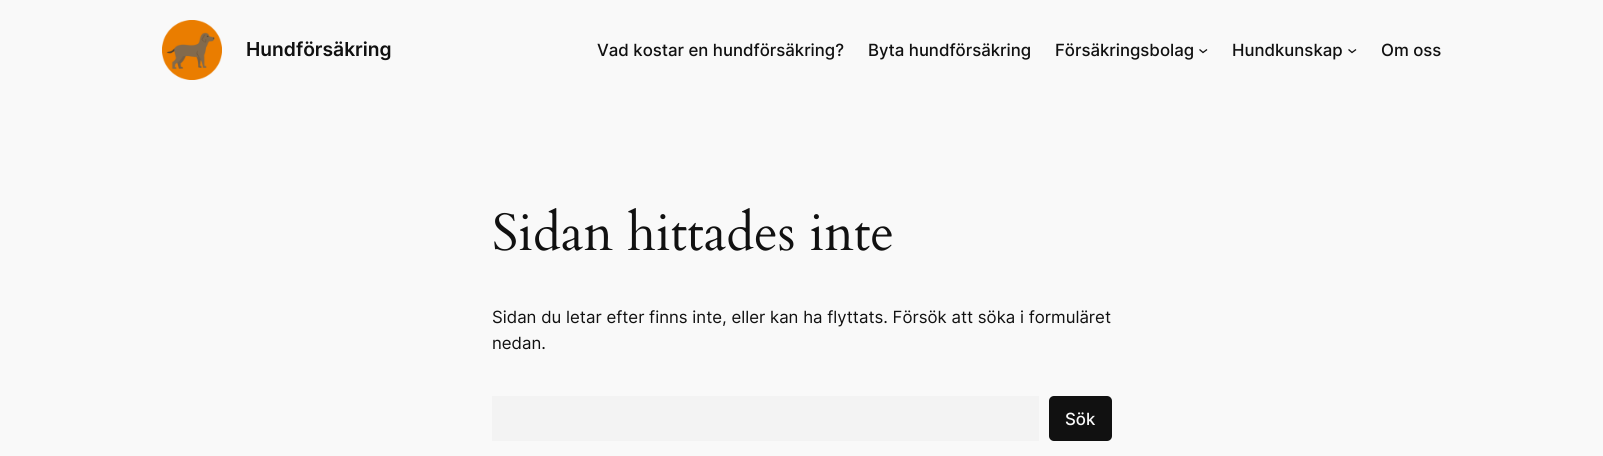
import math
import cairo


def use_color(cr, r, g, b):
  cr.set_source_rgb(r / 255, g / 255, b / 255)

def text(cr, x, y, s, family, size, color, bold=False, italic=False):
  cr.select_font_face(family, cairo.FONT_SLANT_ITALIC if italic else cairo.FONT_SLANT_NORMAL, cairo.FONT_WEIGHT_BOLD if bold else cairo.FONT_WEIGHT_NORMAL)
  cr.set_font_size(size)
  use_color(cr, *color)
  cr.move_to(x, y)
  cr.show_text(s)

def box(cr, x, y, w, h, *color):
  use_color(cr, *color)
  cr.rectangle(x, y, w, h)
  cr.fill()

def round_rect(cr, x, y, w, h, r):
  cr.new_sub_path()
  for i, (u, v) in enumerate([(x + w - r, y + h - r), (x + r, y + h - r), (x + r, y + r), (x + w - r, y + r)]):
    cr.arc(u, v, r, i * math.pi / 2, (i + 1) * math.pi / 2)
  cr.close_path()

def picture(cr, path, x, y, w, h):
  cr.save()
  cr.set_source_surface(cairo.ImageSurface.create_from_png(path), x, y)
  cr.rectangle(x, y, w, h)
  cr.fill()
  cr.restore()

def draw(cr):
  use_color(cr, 249, 249, 249)
  cr.paint()
  picture(cr, "img_01.png", 162, 20, 60, 60)
  cr.new_path()
  cr.move_to(1199.5, 49.5)
  cr.line_to(1203, 52.5)
  cr.line_to(1207, 49.5)
  use_color(cr, 17, 17, 17)
  cr.set_line_width(1.3)
  cr.stroke()
  cr.new_path()
  cr.move_to(1348.5, 49.5)
  cr.line_to(1352, 52.5)
  cr.line_to(1356, 49.5)
  cr.stroke()
  picture(cr, "img_02.png", 494, 208, 398, 43)
  box(cr, 492, 396, 547, 45, 243, 243, 243)
  use_color(cr, 17, 17, 17)
  round_rect(cr, 1049, 396, 63, 45, 5)
  cr.fill()
  text(cr, 246, 56, "Hundförsäkring", "Inter SemiBold", 19.25, (17, 17, 17))
  text(cr, 597, 56, "Vad kostar en hundförsäkring?", "Inter Medium", 16.8, (17, 17, 17))
  text(cr, 868, 56, "Byta hundförsäkring", "Inter Medium", 16.8, (17, 17, 17))
  text(cr, 1055, 56, "Försäkringsbolag", "Inter Medium", 16.8, (17, 17, 17))
  text(cr, 1232, 56, "Hundkunskap", "Inter Medium", 16.8, (17, 17, 17))
  text(cr, 1381, 56, "Om oss", "Inter Medium", 16.8, (17, 17, 17))
  text(cr, 492, 323, "Sidan du letar efter finns inte, eller kan ha flyttats. Försök att söka i formuläret", "Inter", 16.8, (17, 17, 17))
  text(cr, 492, 349, "nedan.", "Inter", 16.8, (17, 17, 17))
  text(cr, 1065, 425, "Sök", "Inter Medium", 16.8, (249, 249, 249))


surface = cairo.ImageSurface(cairo.FORMAT_RGB24, 1603, 456)
cr = cairo.Context(surface)
options = cairo.FontOptions()
options.set_hint_metrics(cairo.HINT_METRICS_OFF)
options.set_hint_style(cairo.HINT_STYLE_NONE)
cr.set_font_options(options)
cr.set_miter_limit(4)
draw(cr)
surface.write_to_png("out.png")
